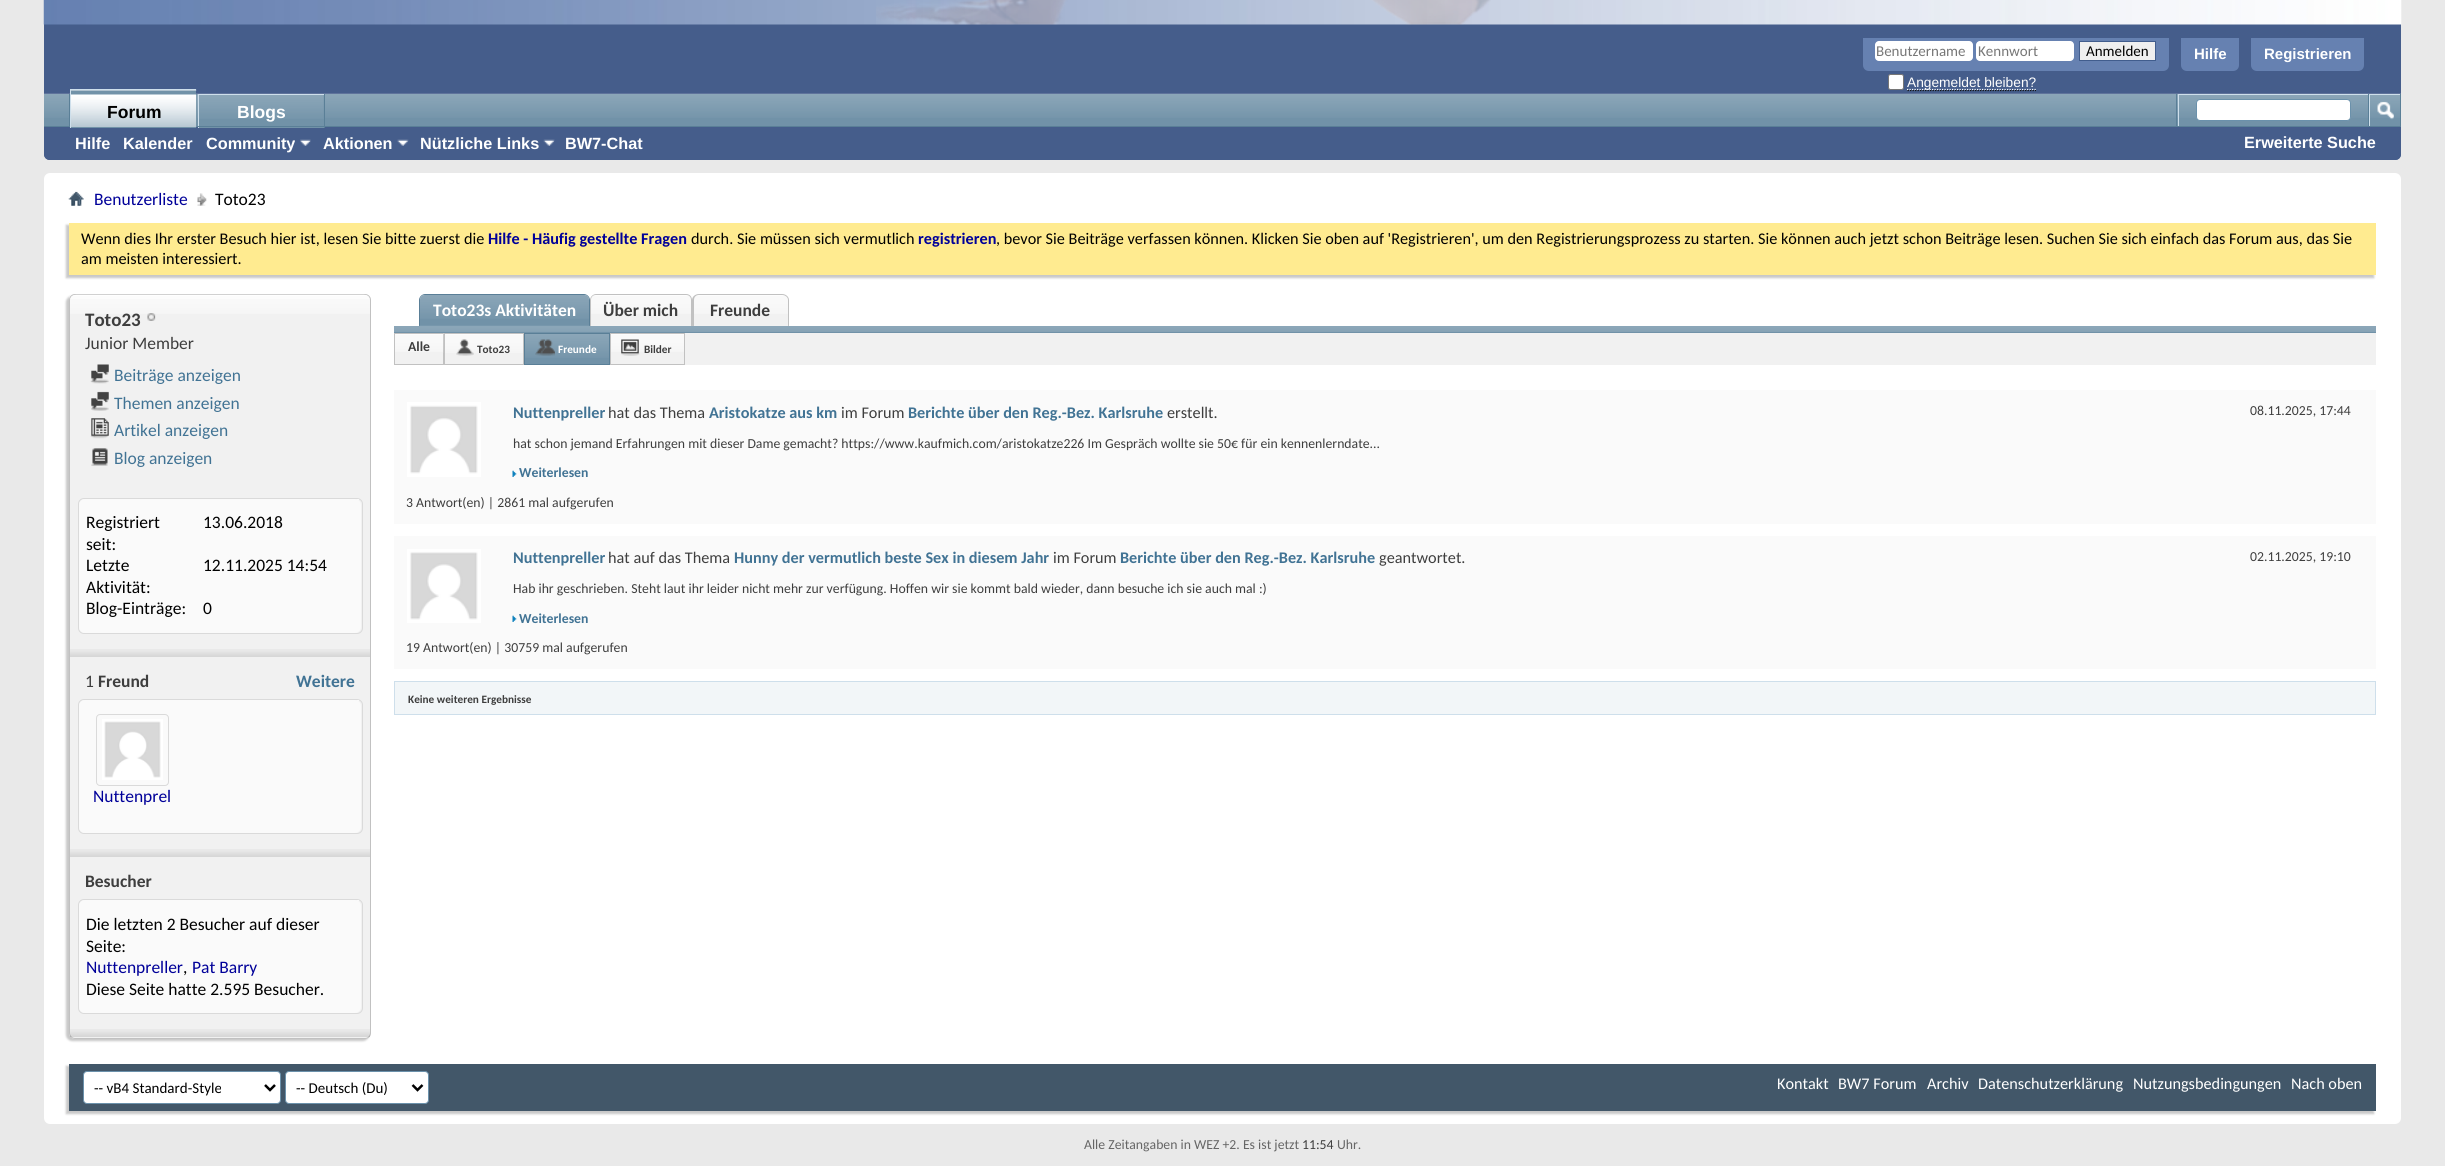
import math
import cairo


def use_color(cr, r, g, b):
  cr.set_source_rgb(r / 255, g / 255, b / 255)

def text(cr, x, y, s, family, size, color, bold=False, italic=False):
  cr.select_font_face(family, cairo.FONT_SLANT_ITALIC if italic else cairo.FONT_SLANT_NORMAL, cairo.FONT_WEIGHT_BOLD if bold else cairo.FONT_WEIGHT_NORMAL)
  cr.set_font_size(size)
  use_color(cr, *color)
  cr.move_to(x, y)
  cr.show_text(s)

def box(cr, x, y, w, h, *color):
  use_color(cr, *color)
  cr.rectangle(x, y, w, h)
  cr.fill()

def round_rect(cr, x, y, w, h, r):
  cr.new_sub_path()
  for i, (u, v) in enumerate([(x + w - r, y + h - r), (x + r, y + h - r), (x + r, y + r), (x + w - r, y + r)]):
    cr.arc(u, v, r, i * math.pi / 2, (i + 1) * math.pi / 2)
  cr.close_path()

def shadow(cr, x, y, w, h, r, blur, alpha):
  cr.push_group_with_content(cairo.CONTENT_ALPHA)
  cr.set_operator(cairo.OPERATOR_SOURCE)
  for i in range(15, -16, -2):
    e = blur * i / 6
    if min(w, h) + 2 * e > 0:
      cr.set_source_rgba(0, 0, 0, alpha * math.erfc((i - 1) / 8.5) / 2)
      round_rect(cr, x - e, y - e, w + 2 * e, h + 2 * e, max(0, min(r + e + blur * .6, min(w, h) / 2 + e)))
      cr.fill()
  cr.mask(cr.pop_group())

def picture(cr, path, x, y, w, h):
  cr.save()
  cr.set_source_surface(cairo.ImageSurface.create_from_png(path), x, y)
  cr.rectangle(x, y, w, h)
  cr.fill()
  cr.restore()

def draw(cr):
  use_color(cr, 233, 233, 233)
  cr.paint()
  use_color(cr, 69, 93, 139)
  cr.new_path()
  cr.move_to(44, -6)
  cr.line_to(2401, -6)
  cr.line_to(2401, 154)
  cr.curve_to(2401, 157.5, 2398.5, 160, 2395, 160)
  cr.line_to(50, 160)
  cr.curve_to(46.5, 160, 44, 157.5, 44, 154)
  cr.close_path()
  cr.fill()
  picture(cr, "img_01.png", 43, 0, 2359, 25)
  picture(cr, "img_02.png", 876, 0, 615, 25)
  use_color(cr, 102, 129, 177)
  cr.new_path()
  cr.move_to(1863, 38)
  cr.line_to(2169, 38)
  cr.line_to(2169, 65)
  cr.curve_to(2169, 68.5, 2166.5, 71, 2163, 71)
  cr.line_to(1869, 71)
  cr.curve_to(1865.5, 71, 1863, 68.5, 1863, 65)
  cr.close_path()
  cr.fill()
  use_color(cr, 255, 255, 255)
  round_rect(cr, 1875, 41, 98, 20, 4)
  cr.fill()
  round_rect(cr, 1976, 41, 98, 20, 4)
  cr.fill()
  use_color(cr, 239, 239, 239)
  cr.rectangle(2079.5, 41.5, 76, 19)
  cr.fill_preserve()
  use_color(cr, 65, 93, 141)
  cr.set_line_width(1)
  cr.stroke()
  use_color(cr, 255, 255, 255)
  round_rect(cr, 1888.5, 74.5, 15, 15, 2)
  cr.fill_preserve()
  use_color(cr, 118, 118, 118)
  cr.stroke()
  cr.new_path()
  cr.move_to(1907.5, 90.5)
  cr.line_to(2036, 90.5)
  use_color(cr, 0, 0, 0)
  cr.set_line_width(1.2)
  cr.set_dash([1.25, 1.25])
  cr.stroke()
  cr.new_path()
  cr.move_to(1907, 89.5)
  cr.line_to(2036, 89.5)
  use_color(cr, 255, 255, 255)
  cr.stroke()
  use_color(cr, 102, 129, 177)
  cr.new_path()
  cr.move_to(2181, 38)
  cr.line_to(2239, 38)
  cr.line_to(2239, 65)
  cr.curve_to(2239, 68.5, 2236.5, 71, 2233, 71)
  cr.line_to(2187, 71)
  cr.curve_to(2183.5, 71, 2181, 68.5, 2181, 65)
  cr.close_path()
  cr.fill()
  cr.new_path()
  cr.move_to(2251, 38)
  cr.line_to(2364, 38)
  cr.line_to(2364, 65)
  cr.curve_to(2364, 68.5, 2361.5, 71, 2358, 71)
  cr.line_to(2257, 71)
  cr.curve_to(2253.5, 71, 2251, 68.5, 2251, 65)
  cr.close_path()
  cr.fill()
  use_color(cr, 69, 93, 139)
  cr.new_path()
  cr.move_to(44, 94)
  cr.line_to(2401, 94)
  cr.line_to(2401, 154)
  cr.curve_to(2401, 157.5, 2398.5, 160, 2395, 160)
  cr.line_to(50, 160)
  cr.curve_to(46.5, 160, 44, 157.5, 44, 154)
  cr.close_path()
  cr.fill()
  box(cr, 44, 94, 2356, 32, 113, 146, 168)
  picture(cr, "img_03.png", 44, 93, 2357, 25)
  box(cr, 196, 94, 1, 32, 90, 127, 151)
  box(cr, 69, 94, 1, 32, 90, 127, 151)
  box(cr, 324, 94, 1, 34, 90, 127, 151)
  box(cr, 199, 95, 125, 33, 113, 146, 168)
  picture(cr, "img_08.png", 197, 94, 127, 25)
  box(cr, 198, 94, 126, 1, 206, 223, 235)
  box(cr, 198, 94, 1, 34, 206, 223, 235)
  box(cr, 44, 126, 2357, 1, 90, 127, 151)
  box(cr, 71, 90, 125, 38, 113, 146, 168)
  picture(cr, "img_04.png", 71, 89, 126, 38)
  box(cr, 70, 89, 126, 1, 206, 223, 235)
  box(cr, 70, 89, 1, 39, 206, 223, 235)
  picture(cr, "img_05.png", 300, 139, 11, 7)
  picture(cr, "img_06.png", 397, 139, 12, 7)
  picture(cr, "img_07.png", 543, 139, 12, 7)
  box(cr, 2176, 94, 1, 32, 90, 127, 151)
  box(cr, 2178, 94, 190, 1, 206, 223, 235)
  box(cr, 2178, 94, 1, 32, 206, 223, 235)
  use_color(cr, 255, 255, 255)
  round_rect(cr, 2196.5, 99.5, 154, 21, 3.5)
  cr.fill_preserve()
  use_color(cr, 107, 145, 171)
  cr.set_line_width(1)
  cr.set_dash([])
  cr.stroke()
  box(cr, 2400, 94, 1, 32, 90, 127, 151)
  box(cr, 2368, 94, 1, 32, 90, 127, 151)
  box(cr, 2369, 94, 31, 1, 206, 223, 235)
  box(cr, 2369, 94, 1, 32, 206, 223, 235)
  picture(cr, "img_09.png", 2377, 101, 17, 19)
  use_color(cr, 255, 255, 255)
  round_rect(cr, 44, 173, 2357, 951, 6)
  cr.fill()
  picture(cr, "img_10.png", 68, 191, 16, 15)
  picture(cr, "img_11.png", 197, 193, 10, 13)
  use_color(cr, 200, 200, 200)
  shadow(cr, 66, 225, 2308, 53, 0, 1, 1)
  box(cr, 69, 223, 2307, 52, 255, 235, 144)
  use_color(cr, 200, 200, 200)
  shadow(cr, 66, 296, 303, 745, 6, 1, 1)
  use_color(cr, 241, 241, 241)
  round_rect(cr, 69, 294, 302, 745, 6)
  cr.fill()
  picture(cr, "img_12.png", 69, 294, 302, 20)
  round_rect(cr, 69.5, 294.5, 301, 744, 5.5)
  use_color(cr, 193, 193, 193)
  cr.stroke()
  picture(cr, "img_13.png", 70, 294, 300, 5)
  picture(cr, "img_14.png", 147, 313, 9, 8)
  picture(cr, "img_15.png", 90, 364, 19, 20)
  picture(cr, "img_16.png", 91, 391, 18, 20)
  picture(cr, "img_17.png", 90, 418, 19, 21)
  picture(cr, "img_18.png", 91, 448, 17, 18)
  round_rect(cr, 78.5, 498.5, 284, 135, 5.5)
  use_color(cr, 218, 218, 218)
  cr.stroke()
  use_color(cr, 250, 250, 250)
  round_rect(cr, 79, 499, 282, 134, 6)
  cr.fill()
  box(cr, 357, 499, 2, 1, 250, 250, 250)
  picture(cr, "img_19.png", 70, 649, 300, 8)
  round_rect(cr, 78.5, 699.5, 284, 134, 5.5)
  use_color(cr, 218, 218, 218)
  cr.stroke()
  use_color(cr, 250, 250, 250)
  round_rect(cr, 79, 700, 282, 133, 6)
  cr.fill()
  box(cr, 357, 700, 2, 1, 250, 250, 250)
  round_rect(cr, 96.5, 714.5, 72, 71, 3.5)
  use_color(cr, 218, 218, 218)
  cr.stroke()
  picture(cr, "img_20.png", 102, 719, 61, 61)
  picture(cr, "img_19.png", 70, 849, 300, 8)
  round_rect(cr, 78.5, 899.5, 284, 114, 5.5)
  cr.stroke()
  use_color(cr, 250, 250, 250)
  round_rect(cr, 79, 900, 282, 113, 6)
  cr.fill()
  box(cr, 357, 900, 2, 1, 250, 250, 250)
  picture(cr, "img_21.png", 70, 1029, 300, 8)
  use_color(cr, 113, 146, 168)
  cr.new_path()
  cr.move_to(425, 295)
  cr.line_to(584, 295)
  cr.curve_to(587, 295, 589, 297, 589, 300)
  cr.line_to(589, 326)
  cr.line_to(420, 326)
  cr.line_to(420, 300)
  cr.curve_to(420, 297, 422, 295, 425, 295)
  cr.close_path()
  cr.fill()
  picture(cr, "img_22.png", 420, 295, 169, 24)
  use_color(cr, 90, 127, 151)
  cr.set_fill_rule(cairo.FILL_RULE_EVEN_ODD)
  cr.new_path()
  cr.move_to(425, 294)
  cr.line_to(584, 294)
  cr.curve_to(587, 294, 590, 297, 590, 300)
  cr.line_to(590, 326)
  cr.line_to(419, 326)
  cr.line_to(419, 300)
  cr.curve_to(419, 297, 422, 294, 425, 294)
  cr.close_path()
  cr.move_to(425, 295)
  cr.line_to(584, 295)
  cr.curve_to(587, 295, 589, 297, 589, 300)
  cr.line_to(589, 326)
  cr.line_to(420, 326)
  cr.line_to(420, 300)
  cr.curve_to(420, 297, 422, 295, 425, 295)
  cr.close_path()
  cr.fill()
  use_color(cr, 241, 241, 241)
  cr.new_path()
  cr.move_to(596, 295)
  cr.line_to(686, 295)
  cr.curve_to(689, 295, 691, 297, 691, 300)
  cr.line_to(691, 326)
  cr.line_to(591, 326)
  cr.line_to(591, 300)
  cr.curve_to(591, 297, 593, 295, 596, 295)
  cr.close_path()
  cr.fill()
  picture(cr, "img_23.png", 591, 295, 100, 19)
  use_color(cr, 193, 193, 193)
  cr.new_path()
  cr.move_to(596, 294)
  cr.line_to(686, 294)
  cr.curve_to(690, 294, 692, 297, 692, 300)
  cr.line_to(692, 326)
  cr.line_to(590, 326)
  cr.line_to(590, 300)
  cr.curve_to(590, 297, 593, 294, 596, 294)
  cr.close_path()
  cr.move_to(596, 295)
  cr.line_to(686, 295)
  cr.curve_to(689, 295, 691, 297, 691, 300)
  cr.line_to(691, 326)
  cr.line_to(591, 326)
  cr.line_to(591, 300)
  cr.curve_to(591, 297, 593, 295, 596, 295)
  cr.close_path()
  cr.fill()
  use_color(cr, 241, 241, 241)
  cr.new_path()
  cr.move_to(699, 295)
  cr.line_to(783, 295)
  cr.curve_to(786, 295, 788, 297, 788, 300)
  cr.line_to(788, 326)
  cr.line_to(694, 326)
  cr.line_to(694, 300)
  cr.curve_to(694, 297, 696, 295, 699, 295)
  cr.close_path()
  cr.fill()
  picture(cr, "img_24.png", 694, 295, 94, 19)
  use_color(cr, 193, 193, 193)
  cr.new_path()
  cr.move_to(699, 294)
  cr.line_to(782, 294)
  cr.curve_to(786, 294, 789, 297, 789, 300)
  cr.line_to(789, 326)
  cr.line_to(692, 326)
  cr.line_to(692, 300)
  cr.curve_to(692, 297, 695, 294, 699, 294)
  cr.close_path()
  cr.move_to(699, 295)
  cr.line_to(782, 295)
  cr.curve_to(785, 295, 788, 297, 788, 300)
  cr.line_to(788, 326)
  cr.line_to(694, 326)
  cr.line_to(694, 300)
  cr.curve_to(694, 297, 696, 295, 699, 295)
  cr.close_path()
  cr.fill()
  box(cr, 394, 326, 1982, 7, 113, 146, 168)
  picture(cr, "img_25.png", 394, 325, 1982, 7)
  box(cr, 395, 333, 1981, 32, 241, 241, 241)
  picture(cr, "img_26.png", 395, 334, 48, 18)
  cr.rectangle(394.5, 333.5, 49, 31)
  use_color(cr, 193, 193, 193)
  cr.stroke()
  picture(cr, "img_27.png", 443, 333, 80, 20)
  cr.rectangle(444.5, 333.5, 79, 31)
  cr.stroke()
  picture(cr, "img_28.png", 456, 339, 18, 17)
  box(cr, 525, 334, 84, 30, 113, 146, 168)
  picture(cr, "img_29.png", 525, 334, 84, 24)
  cr.rectangle(524.5, 333.5, 85, 31)
  use_color(cr, 90, 127, 151)
  cr.stroke()
  picture(cr, "img_30.png", 535, 339, 20, 17)
  picture(cr, "img_31.png", 611, 334, 73, 18)
  cr.rectangle(610.5, 333.5, 74, 31)
  use_color(cr, 193, 193, 193)
  cr.stroke()
  picture(cr, "img_32.png", 621, 339, 19, 17)
  box(cr, 394, 390, 1982, 134, 250, 250, 250)
  picture(cr, "img_33.png", 407, 402, 74, 75)
  picture(cr, "img_34.png", 512, 470, 5, 7)
  box(cr, 394, 536, 1982, 133, 250, 250, 250)
  picture(cr, "img_35.png", 407, 549, 74, 74)
  picture(cr, "img_34.png", 512, 615, 5, 7)
  use_color(cr, 242, 246, 248)
  cr.rectangle(394.5, 681.5, 1981, 33)
  cr.fill_preserve()
  use_color(cr, 206, 223, 235)
  cr.stroke()
  use_color(cr, 200, 200, 200)
  shadow(cr, 66, 1066, 2308, 48, 0, 1, 1)
  box(cr, 69, 1064, 2307, 47, 66, 87, 105)
  use_color(cr, 255, 255, 255)
  round_rect(cr, 83.5, 1071.5, 197, 32, 3.5)
  cr.fill_preserve()
  use_color(cr, 107, 145, 171)
  cr.stroke()
  cr.new_path()
  cr.move_to(265, 1085)
  cr.line_to(270, 1090)
  cr.line_to(275, 1085)
  use_color(cr, 0, 0, 0)
  cr.set_line_width(2.5)
  cr.stroke()
  use_color(cr, 255, 255, 255)
  round_rect(cr, 285.5, 1071.5, 143, 32, 3.5)
  cr.fill_preserve()
  use_color(cr, 107, 145, 171)
  cr.set_line_width(1)
  cr.stroke()
  cr.new_path()
  cr.move_to(412.5, 1085)
  cr.line_to(417.5, 1090)
  cr.line_to(422.5, 1085)
  use_color(cr, 0, 0, 0)
  cr.set_line_width(2.5)
  cr.stroke()
  text(cr, 1876, 56, "Benutzername", "Carlito", 15, (119, 119, 119))
  text(cr, 1978, 56, "Kennwort", "Carlito", 15, (119, 119, 119))
  text(cr, 2086, 56, "Anmelden", "Carlito", 15, (0, 0, 0))
  text(cr, 1907, 87, "Angemeldet bleiben?", "Liberation Sans", 13.75, (255, 255, 255))
  text(cr, 2194, 59, "Hilfe", "Liberation Sans", 15, (255, 255, 255), bold=True)
  text(cr, 2264, 59, "Registrieren", "Liberation Sans", 15, (255, 255, 255), bold=True)
  text(cr, 107, 118, "Forum", "Liberation Sans", 17.5, (0, 0, 0), bold=True)
  text(cr, 75, 149, "Hilfe", "Liberation Sans", 16.25, (255, 255, 255), bold=True)
  text(cr, 123, 149, "Kalender", "Liberation Sans", 16.25, (255, 255, 255), bold=True)
  text(cr, 206, 149, "Community", "Liberation Sans", 16.25, (255, 255, 255), bold=True)
  text(cr, 323, 149, "Aktionen", "Liberation Sans", 16.25, (255, 255, 255), bold=True)
  text(cr, 420, 149, "Nützliche Links", "Liberation Sans", 16.25, (255, 255, 255), bold=True)
  text(cr, 565, 149, "BW7-Chat", "Liberation Sans", 16.25, (255, 255, 255), bold=True)
  text(cr, 237, 118, "Blogs", "Liberation Sans", 17.5, (255, 255, 255), bold=True)
  text(cr, 2244, 148, "Erweiterte Suche", "Liberation Sans", 16.25, (255, 255, 255), bold=True)
  text(cr, 94, 205, "Benutzerliste", "Carlito", 17.5, (0, 0, 153))
  text(cr, 215, 205, "Toto23", "Carlito", 17.5, (0, 0, 0))
  text(cr, 81, 244, "Wenn dies Ihr erster Besuch hier ist, lesen Sie bitte zuerst die", "Carlito", 16.25, (0, 0, 0))
  text(cr, 488, 244, "Hilfe - Häufig gestellte Fragen", "Carlito", 16.25, (0, 0, 153), bold=True)
  text(cr, 691, 244, "durch. Sie müssen sich vermutlich", "Carlito", 16.25, (0, 0, 0))
  text(cr, 918, 244, "registrieren", "Carlito", 16.25, (0, 0, 153), bold=True)
  text(cr, 996, 244, ", bevor Sie Beiträge verfassen können. Klicken Sie oben auf 'Registrieren', um den Registrierungsprozess zu starten. Sie können auch jetzt schon Beiträge lesen. Suchen Sie sich einfach das Forum aus, das Sie", "Carlito", 16.25, (0, 0, 0))
  text(cr, 81, 264, "am meisten interessiert.", "Carlito", 16.25, (0, 0, 0))
  text(cr, 85, 326, "Toto23", "Carlito", 19, (62, 62, 62), bold=True)
  text(cr, 85, 349, "Junior Member", "Carlito", 17.5, (62, 62, 62))
  text(cr, 114, 381, "Beiträge anzeigen", "Carlito", 17.5, (65, 115, 148))
  text(cr, 114, 409, "Themen anzeigen", "Carlito", 17.5, (65, 115, 148))
  text(cr, 114, 436, "Artikel anzeigen", "Carlito", 17.5, (65, 115, 148))
  text(cr, 114, 464, "Blog anzeigen", "Carlito", 17.5, (65, 115, 148))
  text(cr, 86, 528, "Registriert", "Carlito", 17.5, (0, 0, 0))
  text(cr, 86, 550, "seit:", "Carlito", 17.5, (0, 0, 0))
  text(cr, 203, 528, "13.06.2018", "Carlito", 17.5, (0, 0, 0))
  text(cr, 86, 571, "Letzte", "Carlito", 17.5, (0, 0, 0))
  text(cr, 86, 593, "Aktivität:", "Carlito", 17.5, (0, 0, 0))
  text(cr, 203, 571, "12.11.2025 14:54", "Carlito", 17.5, (0, 0, 0))
  text(cr, 86, 614, "Blog-Einträge:", "Carlito", 17.5, (0, 0, 0))
  text(cr, 203, 614, "0", "Carlito", 17.5, (0, 0, 0))
  text(cr, 85, 687, "1", "Carlito", 17.5, (62, 62, 62))
  text(cr, 98, 687, "Freund", "Carlito", 17.5, (62, 62, 62), bold=True)
  text(cr, 296, 687, "Weitere", "Carlito", 17.5, (65, 115, 148), bold=True)
  text(cr, 93, 802, "Nuttenprel", "Carlito", 17.5, (0, 0, 153))
  text(cr, 85, 887, "Besucher", "Carlito", 17.5, (62, 62, 62), bold=True)
  text(cr, 86, 930, "Die letzten 2 Besucher auf dieser", "Carlito", 17.5, (0, 0, 0))
  text(cr, 86, 952, "Seite:", "Carlito", 17.5, (0, 0, 0))
  text(cr, 86, 973, "Nuttenpreller", "Carlito", 17.5, (0, 0, 153))
  text(cr, 183, 973, ",", "Carlito", 17.5, (0, 0, 0))
  text(cr, 192, 973, "Pat Barry", "Carlito", 17.5, (0, 0, 153))
  text(cr, 86, 995, "Diese Seite hatte 2.595 Besucher.", "Carlito", 17.5, (0, 0, 0))
  text(cr, 433, 316, "Toto23s Aktivitäten", "Carlito", 17.5, (255, 255, 255), bold=True)
  text(cr, 603, 316, "Über mich", "Carlito", 17.5, (62, 62, 62), bold=True)
  text(cr, 710, 316, "Freunde", "Carlito", 17.5, (62, 62, 62), bold=True)
  text(cr, 408, 351, "Alle", "Carlito", 13.75, (62, 62, 62), bold=True)
  text(cr, 477, 353, "Toto23", "Carlito", 11.25, (62, 62, 62), bold=True)
  text(cr, 558, 353, "Freunde", "Carlito", 11.25, (255, 255, 255), bold=True)
  text(cr, 644, 353, "Bilder", "Carlito", 11.25, (62, 62, 62), bold=True)
  text(cr, 513, 418, "Nuttenpreller", "Carlito", 16.25, (65, 115, 148), bold=True)
  text(cr, 608, 418, "hat das Thema", "Carlito", 16.25, (62, 62, 62))
  text(cr, 709, 418, "Aristokatze aus km", "Carlito", 16.25, (65, 115, 148), bold=True)
  text(cr, 841, 418, "im Forum", "Carlito", 16.25, (62, 62, 62))
  text(cr, 908, 418, "Berichte über den Reg.-Bez. Karlsruhe", "Carlito", 16.25, (65, 115, 148), bold=True)
  text(cr, 1167, 418, "erstellt.", "Carlito", 16.25, (62, 62, 62))
  text(cr, 2250, 415, "08.11.2025, 17:44", "Carlito", 13.75, (62, 62, 62))
  text(cr, 513, 448, "hat schon jemand Erfahrungen mit dieser Dame gemacht? https://www.kaufmich.com/aristokatze226 Im Gespräch wollte sie 50€ für ein kennenlerndate...", "Carlito", 13.75, (62, 62, 62))
  text(cr, 519, 477, "Weiterlesen", "Carlito", 13.75, (65, 115, 148), bold=True)
  text(cr, 406, 507, "3 Antwort(en) | 2861 mal aufgerufen", "Carlito", 13.75, (62, 62, 62))
  text(cr, 513, 563, "Nuttenpreller", "Carlito", 16.25, (65, 115, 148), bold=True)
  text(cr, 608, 563, "hat auf das Thema", "Carlito", 16.25, (62, 62, 62))
  text(cr, 734, 563, "Hunny der vermutlich beste Sex in diesem Jahr", "Carlito", 16.25, (65, 115, 148), bold=True)
  text(cr, 1053, 563, "im Forum", "Carlito", 16.25, (62, 62, 62))
  text(cr, 1120, 563, "Berichte über den Reg.-Bez. Karlsruhe", "Carlito", 16.25, (65, 115, 148), bold=True)
  text(cr, 1379, 563, "geantwortet.", "Carlito", 16.25, (62, 62, 62))
  text(cr, 2250, 561, "02.11.2025, 19:10", "Carlito", 13.75, (62, 62, 62))
  text(cr, 513, 593, "Hab ihr geschrieben. Steht laut ihr leider nicht mehr zur verfügung. Hoffen wir sie kommt bald wieder, dann besuche ich sie auch mal :)", "Carlito", 13.75, (62, 62, 62))
  text(cr, 519, 623, "Weiterlesen", "Carlito", 13.75, (65, 115, 148), bold=True)
  text(cr, 406, 652, "19 Antwort(en) | 30759 mal aufgerufen", "Carlito", 13.75, (62, 62, 62))
  text(cr, 408, 703, "Keine weiteren Ergebnisse", "Carlito", 11.25, (62, 62, 62), bold=True)
  text(cr, 94, 1093, "-- vB4 Standard-Style", "Carlito", 15, (0, 0, 0))
  text(cr, 296, 1093, "-- Deutsch (Du)", "Carlito", 15, (0, 0, 0))
  text(cr, 1777, 1089, "Kontakt", "Carlito", 16.25, (255, 255, 255))
  text(cr, 1838, 1089, "BW7 Forum", "Carlito", 16.25, (255, 255, 255))
  text(cr, 1927, 1089, "Archiv", "Carlito", 16.25, (255, 255, 255))
  text(cr, 1978, 1089, "Datenschutzerklärung", "Carlito", 16.25, (255, 255, 255))
  text(cr, 2133, 1089, "Nutzungsbedingungen", "Carlito", 16.25, (255, 255, 255))
  text(cr, 2291, 1089, "Nach oben", "Carlito", 16.25, (255, 255, 255))
  text(cr, 1084, 1149, "Alle Zeitangaben in WEZ +2. Es ist jetzt", "Carlito", 13.75, (102, 102, 102))
  text(cr, 1302, 1149, "11:54", "Carlito", 13.75, (62, 62, 62))
  text(cr, 1337, 1149, "Uhr.", "Carlito", 13.75, (102, 102, 102))


surface = cairo.ImageSurface(cairo.FORMAT_RGB24, 2445, 1166)
cr = cairo.Context(surface)
options = cairo.FontOptions()
options.set_hint_metrics(cairo.HINT_METRICS_OFF)
options.set_hint_style(cairo.HINT_STYLE_NONE)
cr.set_font_options(options)
cr.set_miter_limit(4)
draw(cr)
surface.write_to_png("out.png")
